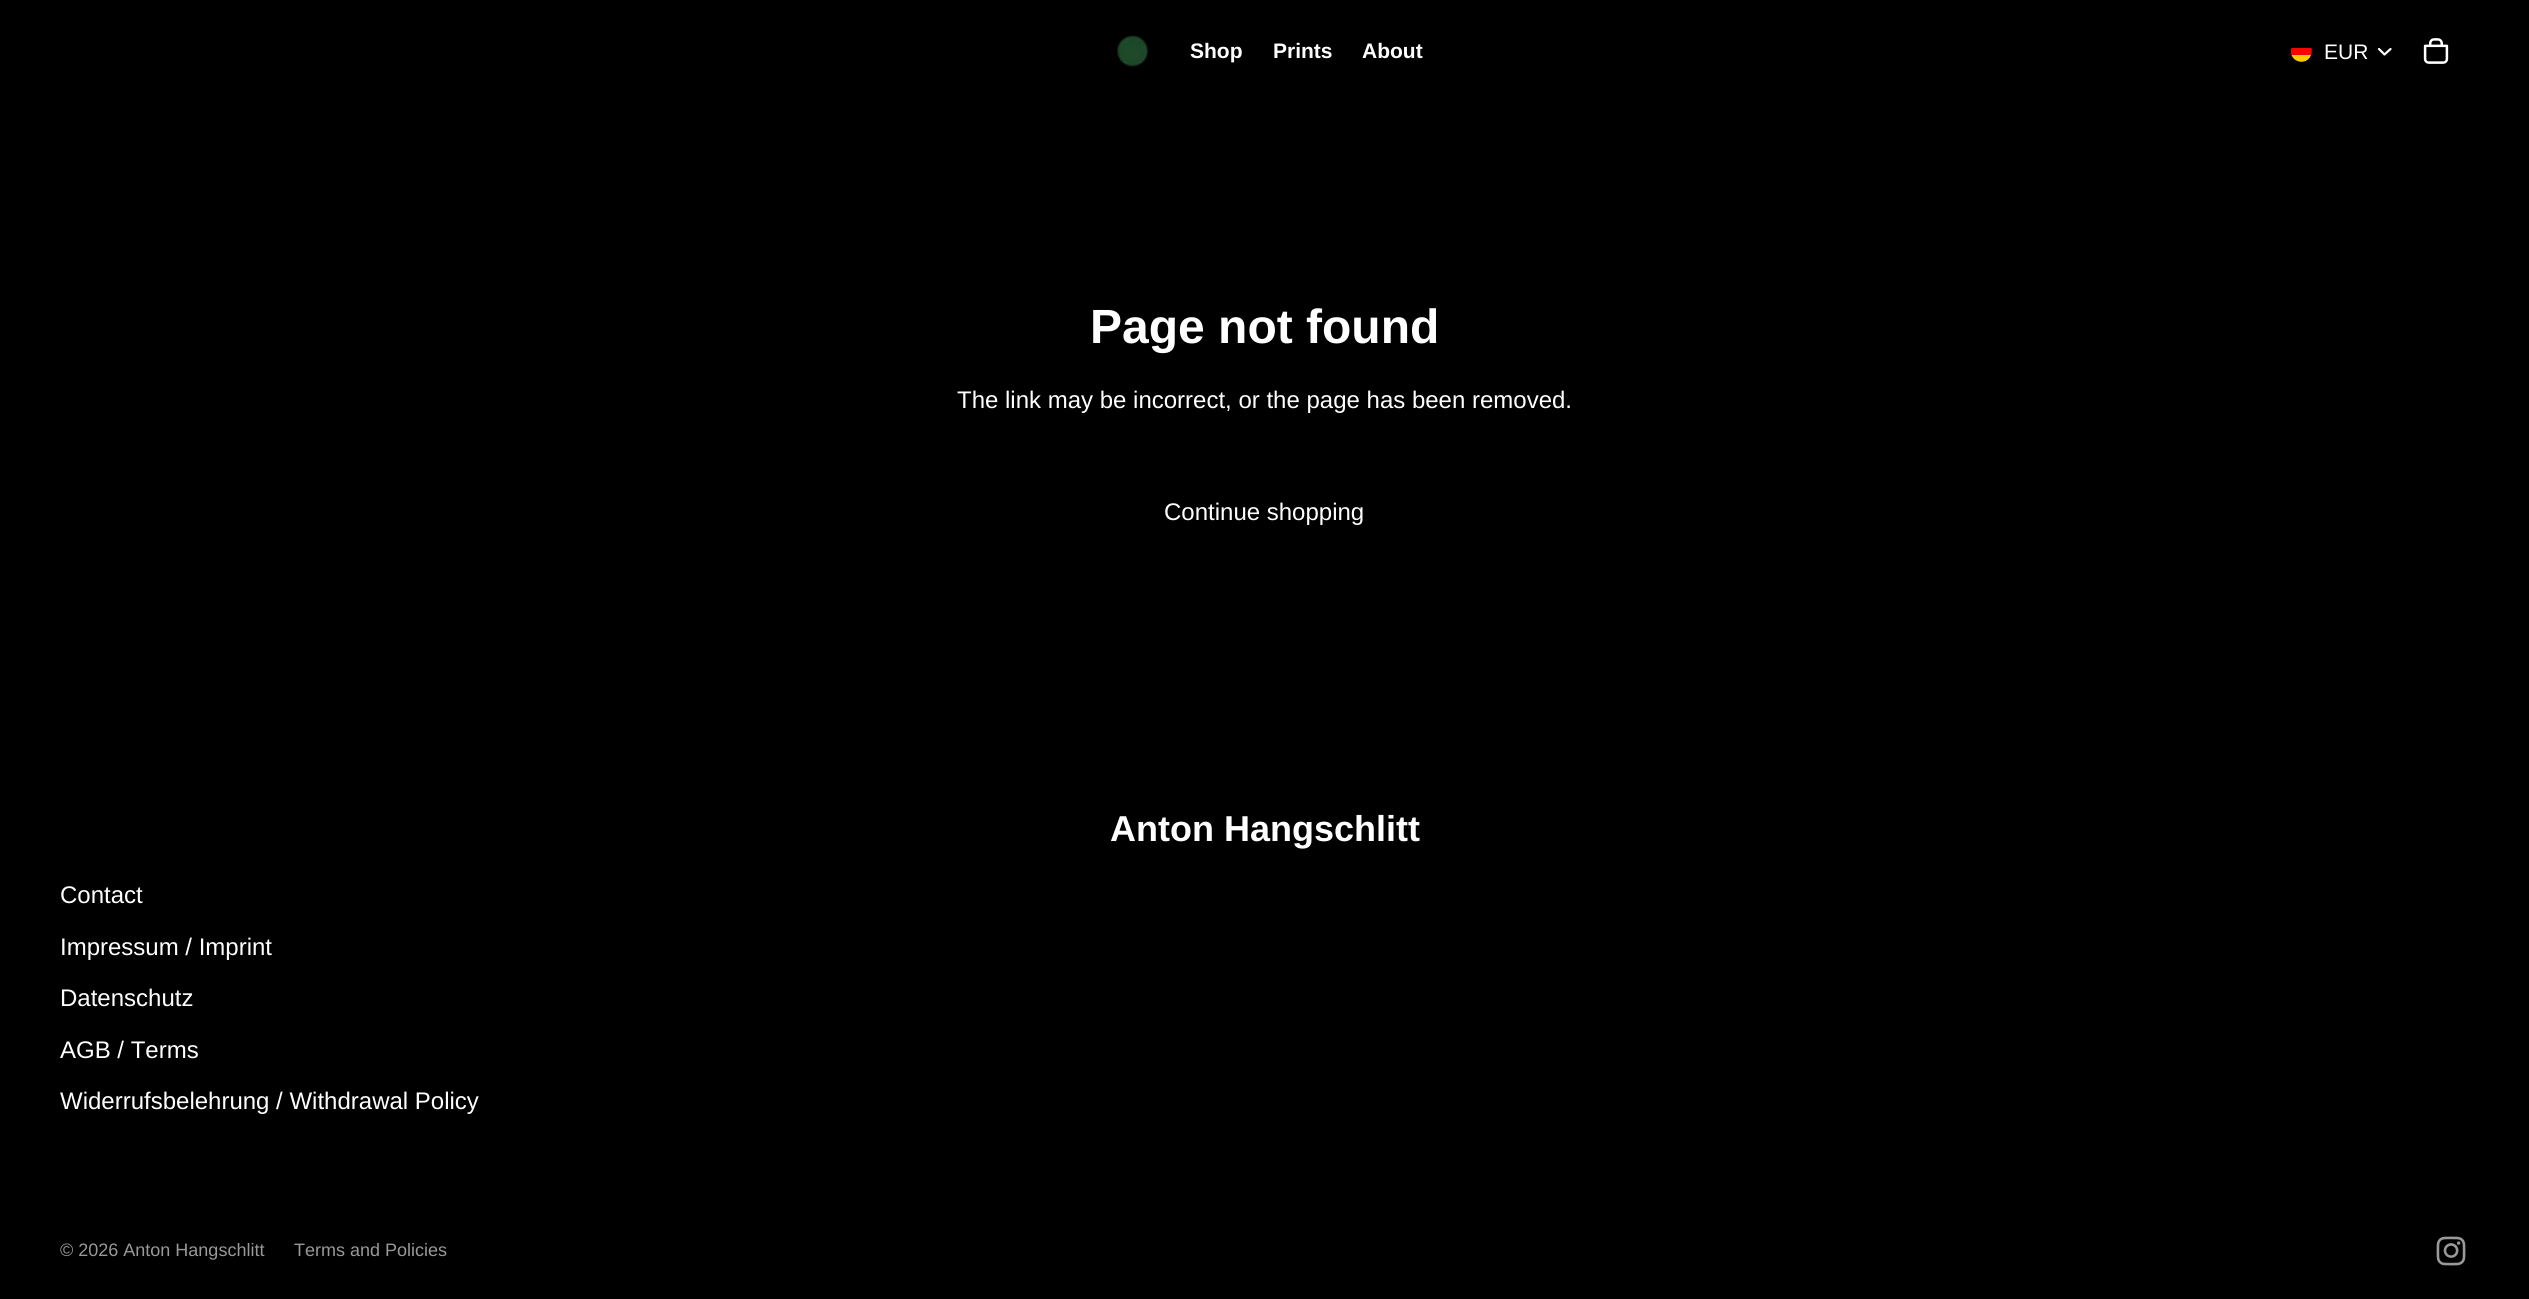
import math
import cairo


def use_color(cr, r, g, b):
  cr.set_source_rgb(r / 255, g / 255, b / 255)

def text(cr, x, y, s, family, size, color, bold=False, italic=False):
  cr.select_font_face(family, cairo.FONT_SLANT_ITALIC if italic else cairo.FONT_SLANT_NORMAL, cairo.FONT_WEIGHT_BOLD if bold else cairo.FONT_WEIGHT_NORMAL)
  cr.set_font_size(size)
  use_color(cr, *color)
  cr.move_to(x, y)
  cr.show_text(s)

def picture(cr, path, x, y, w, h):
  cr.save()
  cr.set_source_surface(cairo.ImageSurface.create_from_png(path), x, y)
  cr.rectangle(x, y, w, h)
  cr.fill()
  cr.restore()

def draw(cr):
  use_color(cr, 0, 0, 0)
  cr.paint()
  picture(cr, "img_01.png", 1117, 35, 31, 32)
  use_color(cr, 255, 204, 0)
  cr.new_path()
  cr.move_to(2311, 55)
  cr.curve_to(2308, 64, 2295, 64, 2291.5, 55)
  cr.close_path()
  cr.fill()
  cr.save()
  cr.rectangle(2291, 41, 21, 21)
  cr.clip()
  use_color(cr, 255, 0, 0)
  cr.new_path()
  cr.move_to(2291.5, 55)
  cr.curve_to(2290.5, 53, 2290.5, 50.5, 2291.5, 48)
  cr.line_to(2311.5, 48)
  cr.curve_to(2312, 50.5, 2312, 53, 2311, 55)
  cr.close_path()
  cr.fill()
  cr.restore()
  cr.new_path()
  cr.move_to(2390.5, 49)
  cr.line_to(2384.5, 54.5)
  cr.line_to(2379, 49)
  use_color(cr, 255, 255, 255)
  cr.set_line_width(2.2)
  cr.set_line_cap(cairo.LINE_CAP_ROUND)
  cr.set_line_join(cairo.LINE_JOIN_ROUND)
  cr.stroke()
  picture(cr, "img_02.png", 2423, 38, 26, 26)
  picture(cr, "img_03.png", 2436, 1236, 30, 30)
  text(cr, 1190, 58, "Shop", "Liberation Sans", 21, (255, 255, 255), bold=True)
  text(cr, 1273, 58, "Prints", "Liberation Sans", 21, (255, 255, 255), bold=True)
  text(cr, 1362, 58, "About", "Liberation Sans", 21, (255, 255, 255), bold=True)
  text(cr, 2324, 59, "EUR", "Liberation Sans", 21, (255, 255, 255))
  text(cr, 1090, 343, "Page not found", "Liberation Sans", 48, (255, 255, 255), bold=True)
  text(cr, 957, 408, "The link may be incorrect, or the page has been removed.", "Liberation Sans", 24, (255, 255, 255))
  text(cr, 1164, 520, "Continue shopping", "Liberation Sans", 24, (255, 255, 255))
  text(cr, 1110, 841, "Anton Hangschlitt", "Liberation Sans", 36, (255, 255, 255), bold=True)
  text(cr, 60, 903, "Contact", "Liberation Sans", 24, (255, 255, 255))
  text(cr, 60, 955, "Impressum / Imprint", "Liberation Sans", 24, (255, 255, 255))
  text(cr, 60, 1006, "Datenschutz", "Liberation Sans", 24, (255, 255, 255))
  text(cr, 60, 1058, "AGB / Terms", "Liberation Sans", 24, (255, 255, 255))
  text(cr, 60, 1109, "Widerrufsbelehrung / Withdrawal Policy", "Liberation Sans", 24, (255, 255, 255))
  text(cr, 60, 1256, "© 2026 Anton Hangschlitt", "Liberation Sans", 18, (153, 153, 153))
  text(cr, 294, 1256, "Terms and Policies", "Liberation Sans", 18, (153, 153, 153))


surface = cairo.ImageSurface(cairo.FORMAT_RGB24, 2529, 1299)
cr = cairo.Context(surface)
options = cairo.FontOptions()
options.set_hint_metrics(cairo.HINT_METRICS_OFF)
options.set_hint_style(cairo.HINT_STYLE_NONE)
cr.set_font_options(options)
cr.set_miter_limit(4)
draw(cr)
surface.write_to_png("out.png")
